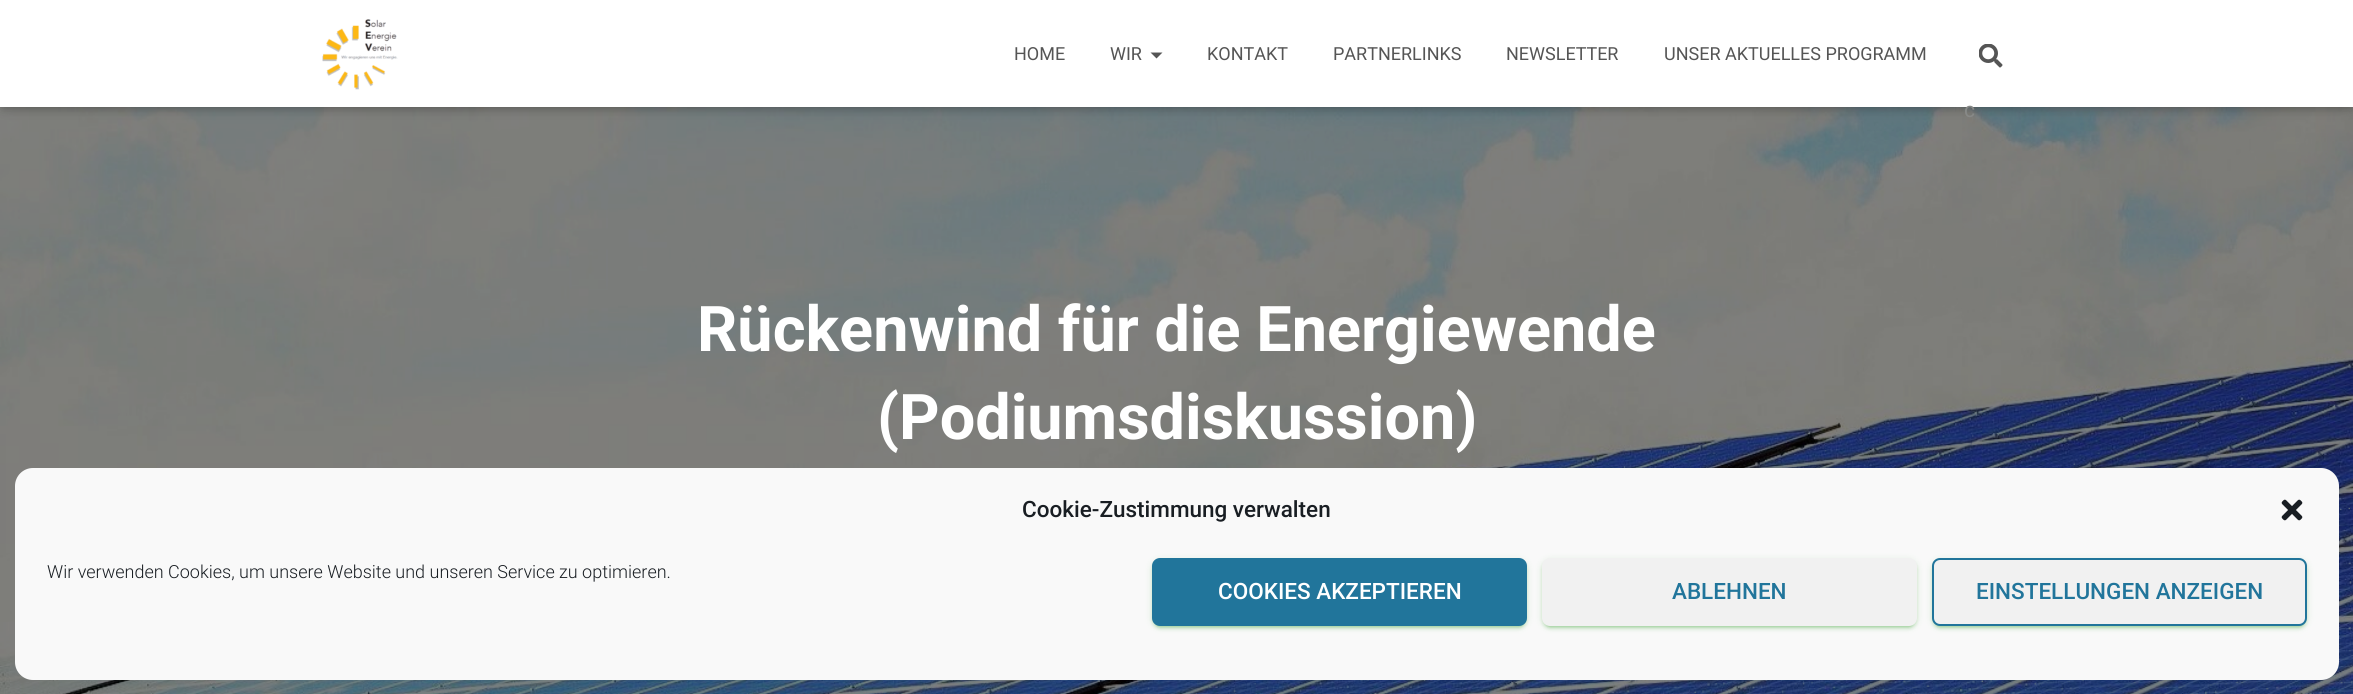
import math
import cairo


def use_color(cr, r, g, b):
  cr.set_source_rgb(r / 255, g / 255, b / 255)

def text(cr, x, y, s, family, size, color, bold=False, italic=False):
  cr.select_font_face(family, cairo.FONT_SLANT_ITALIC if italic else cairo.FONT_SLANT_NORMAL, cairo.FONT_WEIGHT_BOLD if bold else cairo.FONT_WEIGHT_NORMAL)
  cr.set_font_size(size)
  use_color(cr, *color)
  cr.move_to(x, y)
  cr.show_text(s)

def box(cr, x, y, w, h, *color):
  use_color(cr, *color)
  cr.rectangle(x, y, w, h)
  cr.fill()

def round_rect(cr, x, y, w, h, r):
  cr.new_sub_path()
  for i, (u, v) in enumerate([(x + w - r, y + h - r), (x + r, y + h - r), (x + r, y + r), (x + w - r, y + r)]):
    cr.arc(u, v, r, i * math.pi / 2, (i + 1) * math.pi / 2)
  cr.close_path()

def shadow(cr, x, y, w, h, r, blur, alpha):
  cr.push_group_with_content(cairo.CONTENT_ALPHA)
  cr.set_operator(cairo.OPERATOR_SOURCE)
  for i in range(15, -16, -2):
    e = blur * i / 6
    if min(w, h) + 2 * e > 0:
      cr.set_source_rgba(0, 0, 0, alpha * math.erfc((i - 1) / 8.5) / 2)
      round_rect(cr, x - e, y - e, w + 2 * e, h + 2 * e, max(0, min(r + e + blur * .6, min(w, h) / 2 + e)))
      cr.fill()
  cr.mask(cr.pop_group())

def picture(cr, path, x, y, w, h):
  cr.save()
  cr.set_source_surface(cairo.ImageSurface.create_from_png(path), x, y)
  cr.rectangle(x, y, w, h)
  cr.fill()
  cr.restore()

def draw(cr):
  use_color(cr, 255, 255, 255)
  cr.paint()
  picture(cr, "img_03.png", 0, 107, 2353, 587)
  use_color(cr, 0, 0, 0)
  shadow(cr, 3, 9, 2348, 101, 0, 4, 0.1)
  shadow(cr, 0, 2, 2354, 106, 0, 7.5, 0.12)
  shadow(cr, 9, 11, 2336, 88, 0, 7.5, 0.42)
  box(cr, 0, 0, 2353, 107, 255, 255, 255)
  picture(cr, "img_01.png", 322, 19, 76, 71)
  use_color(cr, 85, 85, 85)
  cr.new_path()
  cr.move_to(1150.5, 52.5)
  cr.line_to(1162.5, 52.5)
  cr.line_to(1156.5, 58.5)
  cr.close_path()
  cr.fill()
  picture(cr, "img_02.png", 1979, 44, 24, 24)
  use_color(cr, 249, 249, 249)
  round_rect(cr, 16, 469, 2322, 210, 17)
  cr.fill_preserve()
  cr.stroke()
  picture(cr, "img_04.png", 2281, 499, 22, 22)
  use_color(cr, 15, 142, 8)
  shadow(cr, 1152, 560, 375, 67, 8, 4, 0.12)
  shadow(cr, 1155, 566, 369, 61, 5, 1, 0.2)
  shadow(cr, 1152, 561, 375, 68, 8, 1.5, 0.14)
  use_color(cr, 33, 117, 155)
  round_rect(cr, 1153, 559, 373, 66, 7)
  cr.fill_preserve()
  cr.stroke()
  use_color(cr, 15, 142, 8)
  shadow(cr, 1542, 560, 375, 67, 8, 4, 0.12)
  shadow(cr, 1545, 566, 369, 61, 5, 1, 0.2)
  shadow(cr, 1542, 561, 375, 68, 8, 1.5, 0.14)
  use_color(cr, 241, 241, 241)
  round_rect(cr, 1543, 559, 373, 66, 7)
  cr.fill_preserve()
  cr.stroke()
  use_color(cr, 15, 142, 8)
  shadow(cr, 1932, 560, 375, 67, 8, 4, 0.12)
  shadow(cr, 1935, 566, 369, 61, 5, 1, 0.2)
  shadow(cr, 1932, 561, 375, 68, 8, 1.5, 0.14)
  use_color(cr, 241, 241, 241)
  round_rect(cr, 1933, 559, 373, 66, 7)
  cr.fill_preserve()
  use_color(cr, 33, 117, 155)
  cr.stroke()
  text(cr, 1014, 60, "HOME", "Roboto", 18, (85, 85, 85))
  text(cr, 1110, 60, "WIR", "Roboto", 18, (85, 85, 85))
  text(cr, 1207, 60, "KONTAKT", "Roboto", 18, (85, 85, 85))
  text(cr, 1333, 60, "PARTNERLINKS", "Roboto", 18, (85, 85, 85))
  text(cr, 1506, 60, "NEWSLETTER", "Roboto", 18, (85, 85, 85))
  text(cr, 1664, 60, "UNSER AKTUELLES PROGRAMM", "Roboto", 18, (85, 85, 85))
  text(cr, 1964, 117, "c", "Roboto", 21, (135, 137, 135))
  text(cr, 697, 351, "Rückenwind für die Energiewende", "Roboto", 63, (255, 255, 255), bold=True)
  text(cr, 877, 439, "(Podiumsdiskussion)", "Roboto", 63, (255, 255, 255), bold=True)
  text(cr, 1022, 517, "Cookie-Zustimmung verwalten", "Roboto Medium", 22.5, (25, 30, 35))
  text(cr, 47, 578, "Wir verwenden Cookies, um unsere Website und unseren Service zu optimieren.", "Roboto Light", 18, (25, 30, 35))
  text(cr, 1218, 599, "COOKIES AKZEPTIEREN", "Roboto Medium", 22.5, (255, 255, 255))
  text(cr, 1672, 599, "ABLEHNEN", "Roboto Medium", 22.5, (33, 117, 155))
  text(cr, 1976, 599, "EINSTELLUNGEN ANZEIGEN", "Roboto Medium", 22.5, (33, 117, 155))


surface = cairo.ImageSurface(cairo.FORMAT_RGB24, 2353, 694)
cr = cairo.Context(surface)
options = cairo.FontOptions()
options.set_hint_metrics(cairo.HINT_METRICS_OFF)
options.set_hint_style(cairo.HINT_STYLE_NONE)
cr.set_font_options(options)
cr.set_miter_limit(4)
draw(cr)
surface.write_to_png("out.png")
